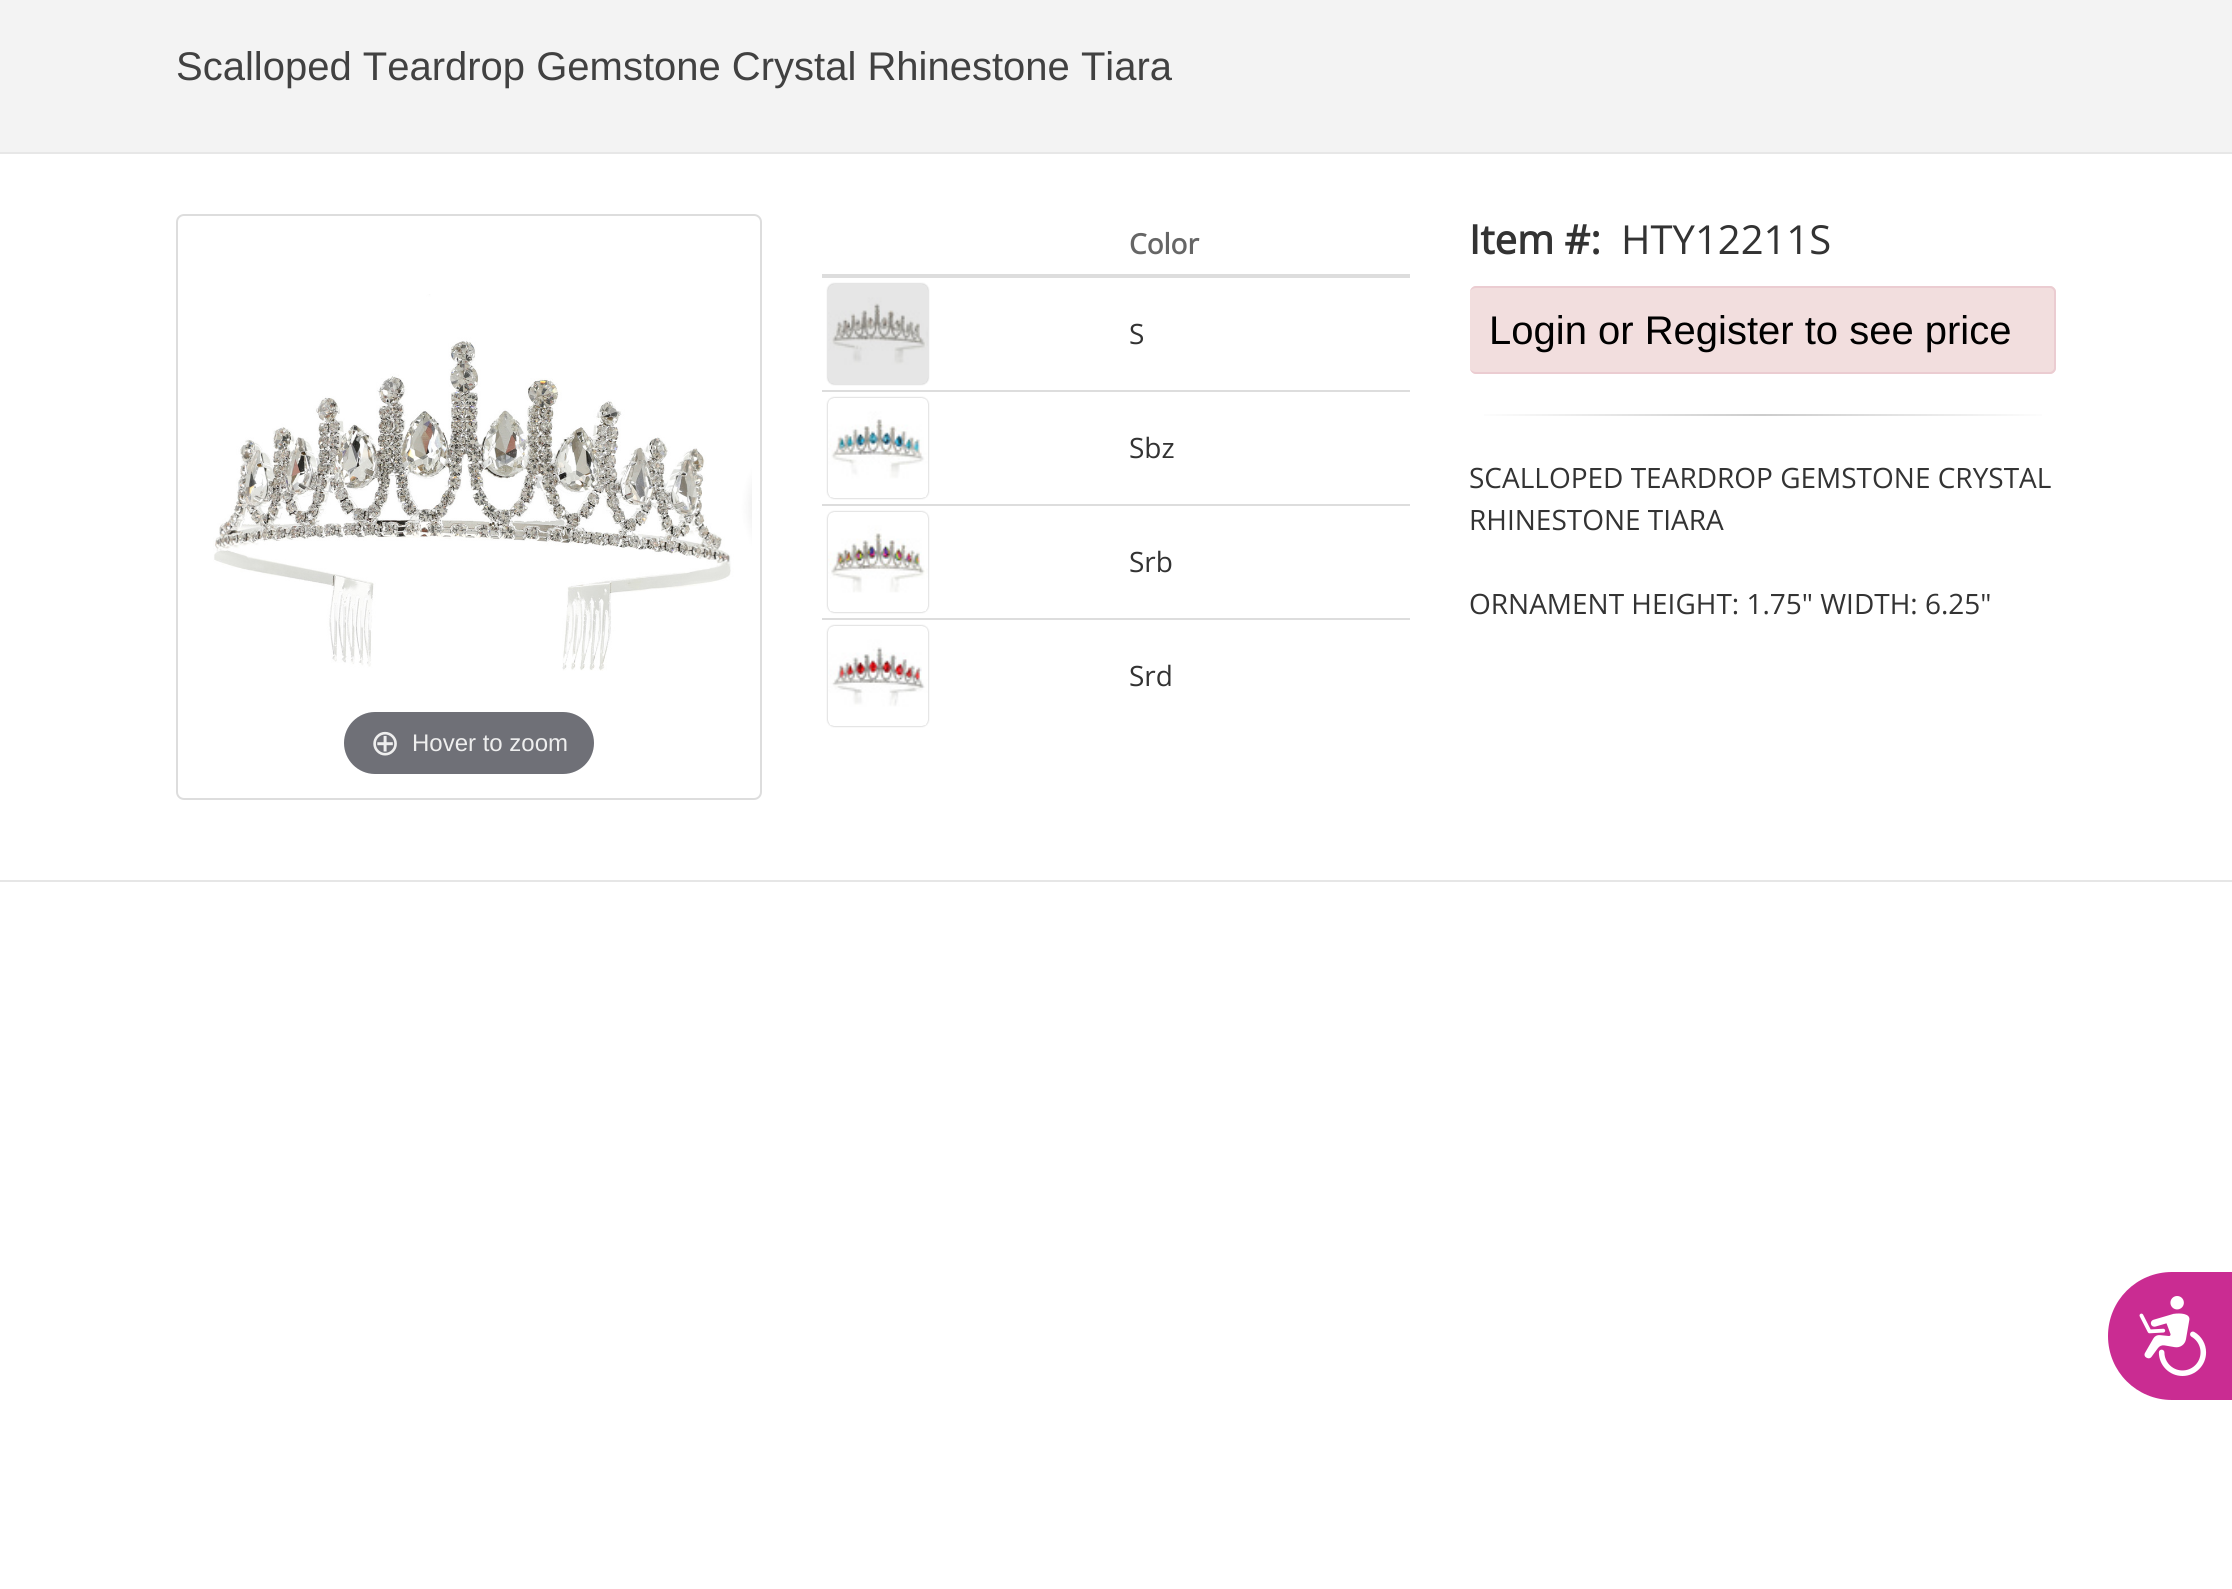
import math
import cairo


def use_color(cr, r, g, b):
  cr.set_source_rgb(r / 255, g / 255, b / 255)

def text(cr, x, y, s, family, size, color, bold=False, italic=False):
  cr.select_font_face(family, cairo.FONT_SLANT_ITALIC if italic else cairo.FONT_SLANT_NORMAL, cairo.FONT_WEIGHT_BOLD if bold else cairo.FONT_WEIGHT_NORMAL)
  cr.set_font_size(size)
  use_color(cr, *color)
  cr.move_to(x, y)
  cr.show_text(s)

def box(cr, x, y, w, h, *color):
  use_color(cr, *color)
  cr.rectangle(x, y, w, h)
  cr.fill()

def round_rect(cr, x, y, w, h, r):
  cr.new_sub_path()
  for i, (u, v) in enumerate([(x + w - r, y + h - r), (x + r, y + h - r), (x + r, y + r), (x + w - r, y + r)]):
    cr.arc(u, v, r, i * math.pi / 2, (i + 1) * math.pi / 2)
  cr.close_path()

def shadow(cr, x, y, w, h, r, blur, alpha):
  cr.push_group_with_content(cairo.CONTENT_ALPHA)
  cr.set_operator(cairo.OPERATOR_SOURCE)
  for i in range(15, -16, -2):
    e = blur * i / 6
    if min(w, h) + 2 * e > 0:
      cr.set_source_rgba(0, 0, 0, alpha * math.erfc((i - 1) / 8.5) / 2)
      round_rect(cr, x - e, y - e, w + 2 * e, h + 2 * e, max(0, min(r + e + blur * .6, min(w, h) / 2 + e)))
      cr.fill()
  cr.mask(cr.pop_group())

def picture(cr, path, x, y, w, h):
  cr.save()
  cr.set_source_surface(cairo.ImageSurface.create_from_png(path), x, y)
  cr.rectangle(x, y, w, h)
  cr.fill()
  cr.restore()

def draw(cr):
  use_color(cr, 255, 255, 255)
  cr.paint()
  box(cr, 0, 0, 2232, 152, 243, 243, 243)
  box(cr, 0, 152, 2232, 2, 231, 231, 231)
  box(cr, 0, 880, 2232, 2, 230, 230, 230)
  box(cr, 822, 274, 588, 4, 221, 221, 221)
  use_color(cr, 0, 0, 0)
  shadow(cr, 828, 284, 100, 100, 6, 1, 0.3)
  picture(cr, "img_01.png", 828, 284, 100, 100)
  box(cr, 822, 390, 588, 2, 221, 221, 221)
  use_color(cr, 0, 0, 0)
  shadow(cr, 828, 398, 100, 100, 6, 1, 0.3)
  picture(cr, "img_02.png", 828, 398, 100, 100)
  box(cr, 822, 504, 588, 2, 221, 221, 221)
  use_color(cr, 0, 0, 0)
  shadow(cr, 828, 512, 100, 100, 6, 1, 0.3)
  picture(cr, "img_03.png", 828, 512, 100, 100)
  box(cr, 822, 618, 588, 2, 221, 221, 221)
  use_color(cr, 0, 0, 0)
  shadow(cr, 828, 626, 100, 100, 6, 1, 0.3)
  picture(cr, "img_04.png", 828, 626, 100, 100)
  use_color(cr, 242, 222, 222)
  round_rect(cr, 1470, 286, 586, 88, 6)
  cr.fill()
  use_color(cr, 235, 204, 209)
  cr.set_fill_rule(cairo.FILL_RULE_EVEN_ODD)
  cr.new_path()
  cr.move_to(1476, 286)
  cr.line_to(2050, 286)
  cr.curve_to(2053, 286, 2056, 289, 2056, 292)
  cr.line_to(2056, 368)
  cr.curve_to(2056, 371, 2053, 374, 2050, 374)
  cr.line_to(1476, 374)
  cr.curve_to(1473, 374, 1470, 371, 1470, 368)
  cr.line_to(1470, 292)
  cr.curve_to(1470, 289, 1473, 286, 1476, 286)
  cr.close_path()
  cr.move_to(1476, 288)
  cr.line_to(2050, 288)
  cr.curve_to(2052, 288, 2054, 290, 2054, 292)
  cr.line_to(2054, 368)
  cr.curve_to(2054, 370, 2052, 372, 2050, 372)
  cr.line_to(1476, 372)
  cr.curve_to(1473, 372, 1470, 370, 1470, 368)
  cr.line_to(1470, 292)
  cr.curve_to(1470, 290, 1473, 288, 1476, 288)
  cr.close_path()
  cr.fill()
  gradient = cairo.LinearGradient(1470, 415, 2056, 415)
  gradient.add_color_stop_rgba(0, 1, 1, 1, 1)
  gradient.add_color_stop_rgba(0.5, 0.8, 0.8, 0.8, 1)
  gradient.add_color_stop_rgba(1, 1, 1, 1, 1)
  cr.set_source(gradient)
  cr.rectangle(1484, 414, 558, 2)
  cr.fill()
  round_rect(cr, 177, 215, 584, 584, 7)
  use_color(cr, 221, 221, 221)
  cr.stroke()
  picture(cr, "img_05.png", 213, 294, 539, 377)
  use_color(cr, 111, 112, 119)
  round_rect(cr, 344, 712, 250, 62, 31)
  cr.fill()
  use_color(cr, 202, 44, 146)
  cr.new_path()
  cr.move_to(2172, 1272)
  cr.line_to(2232, 1272)
  cr.line_to(2232, 1400)
  cr.line_to(2172, 1400)
  cr.curve_to(2136.5, 1400, 2108, 1371.5, 2108, 1336)
  cr.curve_to(2108, 1300.5, 2136.5, 1272, 2172, 1272)
  cr.close_path()
  cr.fill()
  picture(cr, "img_06.png", 2139, 1296, 68, 80)
  text(cr, 176, 80, "Scalloped Teardrop Gemstone Crystal Rhinestone Tiara", "Liberation Sans", 40, (65, 65, 65))
  text(cr, 1129, 254, "Color", "Open Sans", 28, (102, 102, 102), bold=True)
  text(cr, 1129, 344, "S", "Open Sans", 28, (51, 51, 51))
  text(cr, 1129, 458, "Sbz", "Open Sans", 28, (51, 51, 51))
  text(cr, 1129, 572, "Srb", "Open Sans", 28, (51, 51, 51))
  text(cr, 1129, 686, "Srd", "Open Sans", 28, (51, 51, 51))
  text(cr, 1469, 254, "Item #:", "Open Sans", 40, (51, 51, 51), bold=True)
  text(cr, 1621, 254, "HTY12211S", "Open Sans", 40, (51, 51, 51))
  text(cr, 1489, 344, "Login or Register to see price", "Liberation Sans", 40, (0, 0, 0))
  text(cr, 1469, 488, "SCALLOPED TEARDROP GEMSTONE CRYSTAL", "Open Sans", 28, (51, 51, 51))
  text(cr, 1469, 530, "RHINESTONE TIARA", "Open Sans", 28, (51, 51, 51))
  text(cr, 1469, 614, "ORNAMENT HEIGHT: 1.75\" WIDTH: 6.25\"", "Open Sans", 28, (51, 51, 51))
  text(cr, 370, 755, "⊕", "DejaVu Sans", 36, (238, 238, 238))
  text(cr, 412, 751, "Hover to zoom", "Liberation Sans", 24, (238, 238, 238))


surface = cairo.ImageSurface(cairo.FORMAT_RGB24, 2232, 1589)
cr = cairo.Context(surface)
options = cairo.FontOptions()
options.set_hint_metrics(cairo.HINT_METRICS_OFF)
options.set_hint_style(cairo.HINT_STYLE_NONE)
cr.set_font_options(options)
cr.set_miter_limit(4)
draw(cr)
surface.write_to_png("out.png")
